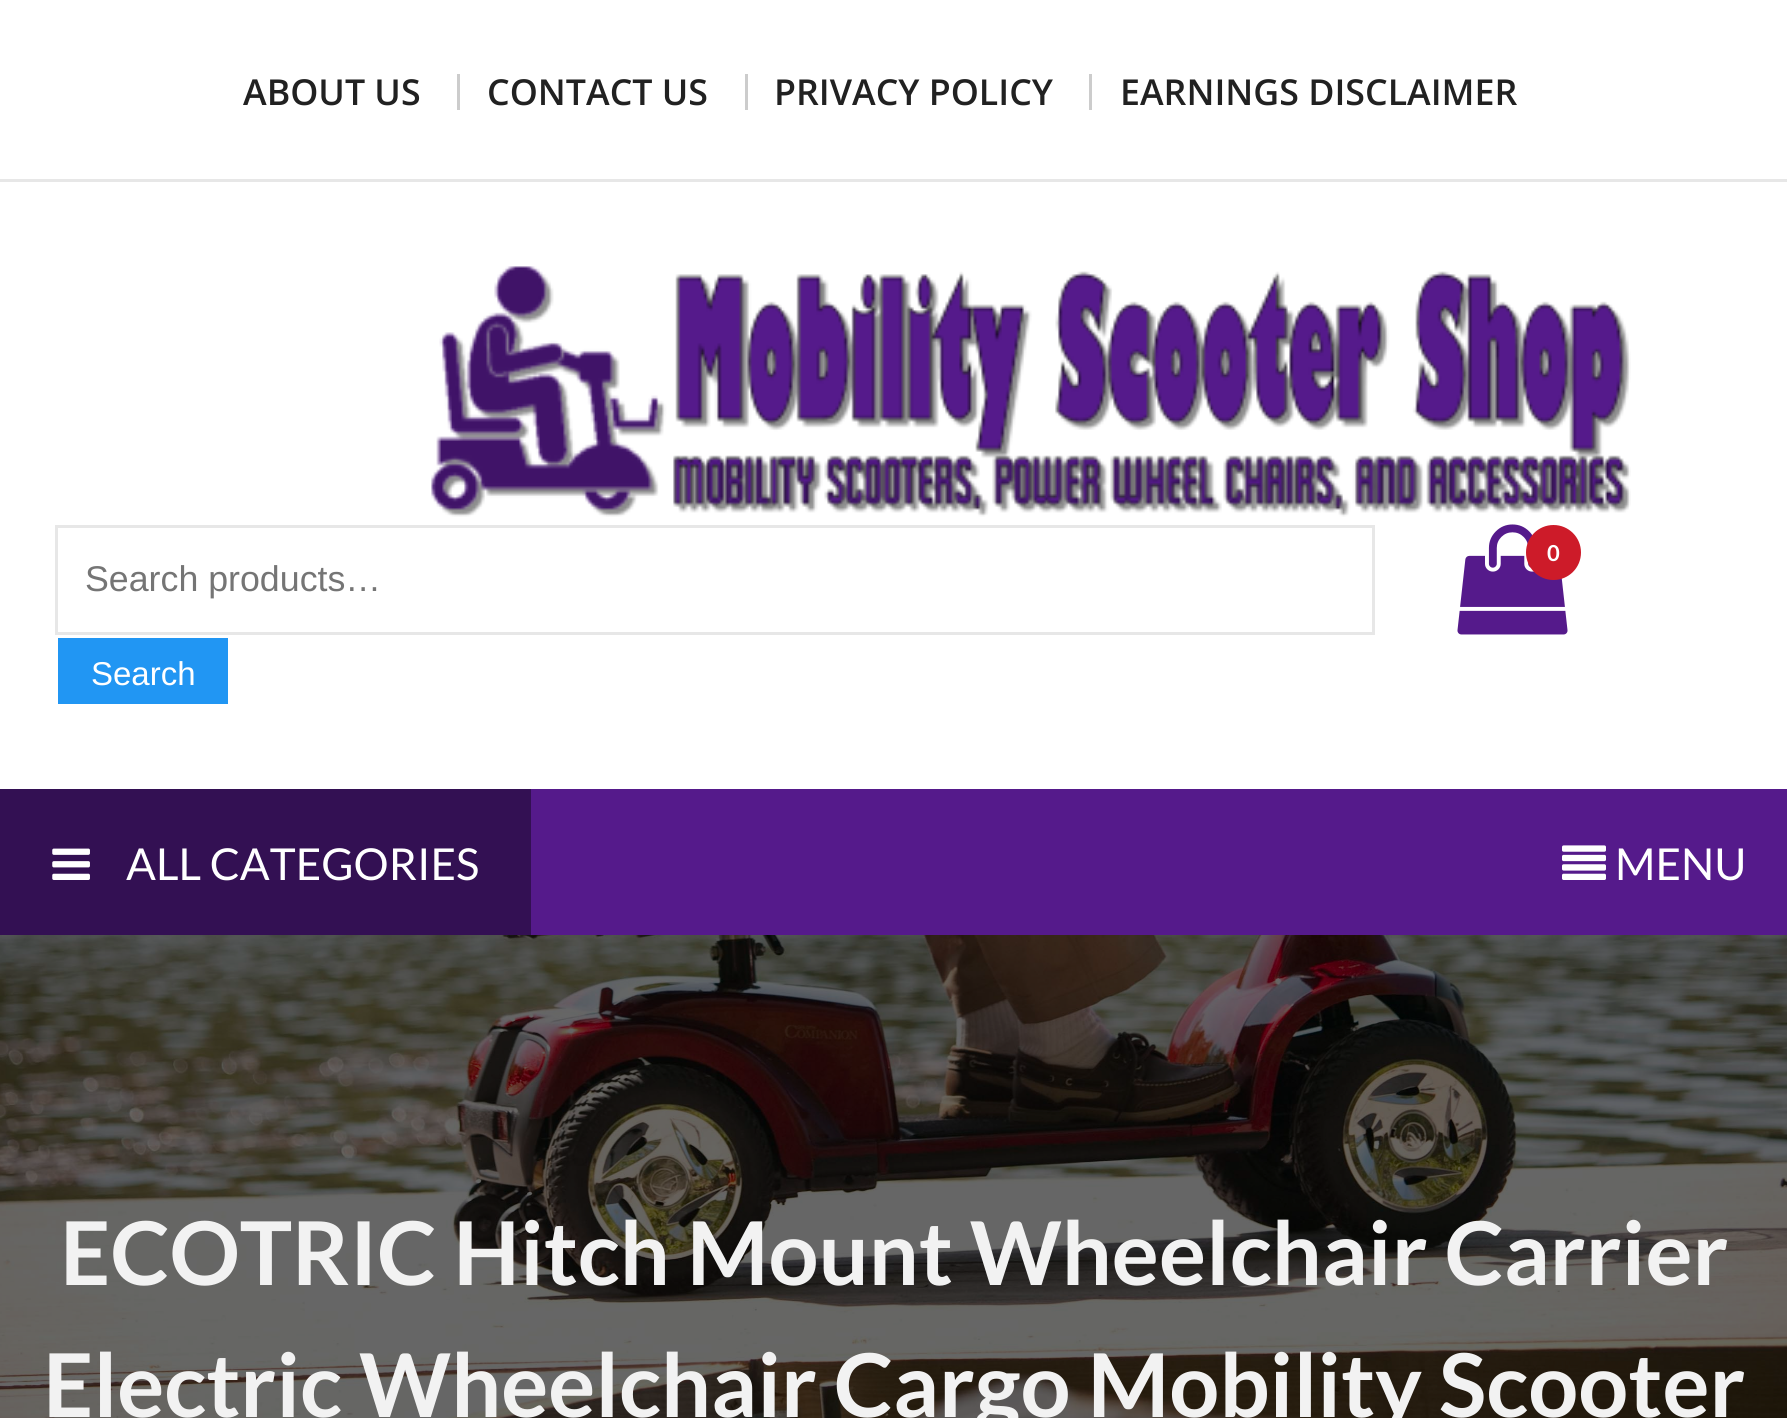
import math
import cairo


def use_color(cr, r, g, b):
  cr.set_source_rgb(r / 255, g / 255, b / 255)

def text(cr, x, y, s, family, size, color, bold=False, italic=False):
  cr.select_font_face(family, cairo.FONT_SLANT_ITALIC if italic else cairo.FONT_SLANT_NORMAL, cairo.FONT_WEIGHT_BOLD if bold else cairo.FONT_WEIGHT_NORMAL)
  cr.set_font_size(size)
  use_color(cr, *color)
  cr.move_to(x, y)
  cr.show_text(s)

def box(cr, x, y, w, h, *color):
  use_color(cr, *color)
  cr.rectangle(x, y, w, h)
  cr.fill()

def picture(cr, path, x, y, w, h):
  cr.save()
  cr.set_source_surface(cairo.ImageSurface.create_from_png(path), x, y)
  cr.rectangle(x, y, w, h)
  cr.fill()
  cr.restore()

def draw(cr):
  use_color(cr, 255, 255, 255)
  cr.paint()
  box(cr, 0, 179, 1787, 3, 231, 231, 231)
  box(cr, 457, 74, 3, 36, 204, 204, 204)
  box(cr, 745, 74, 3, 36, 204, 204, 204)
  box(cr, 1089, 74, 3, 36, 204, 204, 204)
  picture(cr, "img_01.png", 431, 266, 1200, 251)
  picture(cr, "img_02.png", 1457, 524, 111, 111)
  use_color(cr, 205, 27, 41)
  cr.arc(1553.5, 552.5, 27.5, 0, 2 * math.pi)
  cr.fill()
  cr.rectangle(56.5, 526.5, 1317, 107)
  use_color(cr, 231, 231, 231)
  cr.set_line_width(3)
  cr.stroke()
  box(cr, 58, 638, 170, 66, 33, 150, 243)
  box(cr, 531, 789, 1256, 146, 85, 26, 139)
  box(cr, 0, 789, 531, 146, 51, 16, 83)
  picture(cr, "img_03.png", 52, 848, 38, 32)
  picture(cr, "img_04.png", 1562, 845, 44, 35)
  picture(cr, "img_05.png", 0, 935, 1787, 483)
  text(cr, 243, 105, "ABOUT US", "Open Sans SemiBold", 35.75, (33, 33, 33))
  text(cr, 487, 105, "CONTACT US", "Open Sans SemiBold", 35.75, (33, 33, 33))
  text(cr, 774, 105, "PRIVACY POLICY", "Open Sans SemiBold", 35.75, (33, 33, 33))
  text(cr, 1120, 105, "EARNINGS DISCLAIMER", "Open Sans SemiBold", 35.75, (33, 33, 33))
  text(cr, 1547, 561, "0", "Lato", 22, (255, 255, 255), bold=True)
  text(cr, 85, 591, "Search products…", "Liberation Sans", 35.75, (117, 117, 117))
  text(cr, 91, 685, "Search", "Liberation Sans", 33, (255, 255, 255))
  text(cr, 126, 880, "ALL CATEGORIES", "Lato", 44, (255, 255, 255))
  text(cr, 1615, 880, "MENU", "Lato", 44, (255, 255, 255))
  text(cr, 60, 1285, "ECOTRIC Hitch Mount Wheelchair Carrier", "Lato", 88, (242, 242, 242), bold=True)
  text(cr, 43, 1417, "Electric Wheelchair Cargo Mobility Scooter", "Lato", 88, (242, 242, 242), bold=True)


surface = cairo.ImageSurface(cairo.FORMAT_RGB24, 1787, 1418)
cr = cairo.Context(surface)
options = cairo.FontOptions()
options.set_hint_metrics(cairo.HINT_METRICS_OFF)
options.set_hint_style(cairo.HINT_STYLE_NONE)
cr.set_font_options(options)
cr.set_miter_limit(4)
draw(cr)
surface.write_to_png("out.png")
